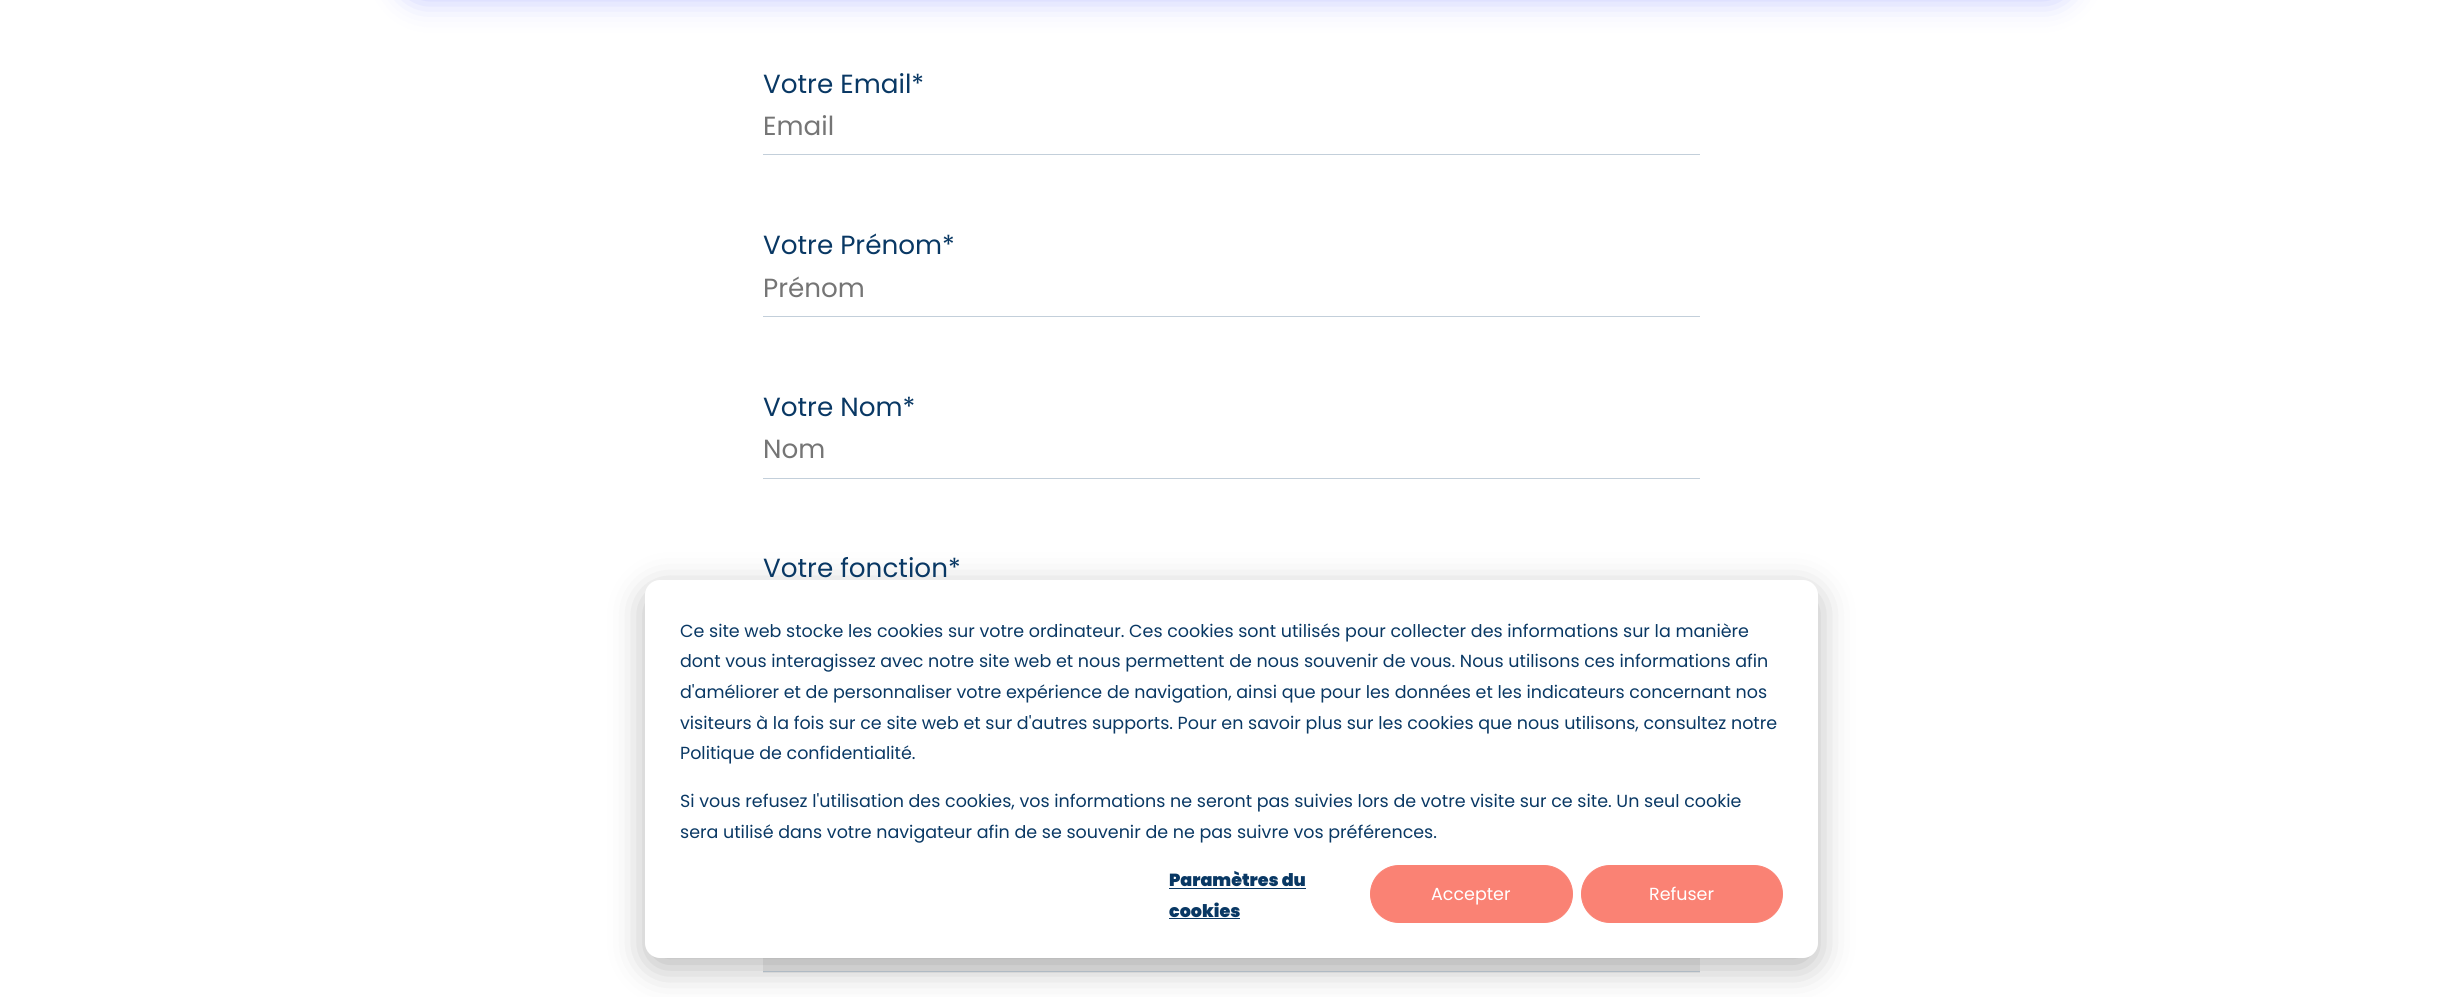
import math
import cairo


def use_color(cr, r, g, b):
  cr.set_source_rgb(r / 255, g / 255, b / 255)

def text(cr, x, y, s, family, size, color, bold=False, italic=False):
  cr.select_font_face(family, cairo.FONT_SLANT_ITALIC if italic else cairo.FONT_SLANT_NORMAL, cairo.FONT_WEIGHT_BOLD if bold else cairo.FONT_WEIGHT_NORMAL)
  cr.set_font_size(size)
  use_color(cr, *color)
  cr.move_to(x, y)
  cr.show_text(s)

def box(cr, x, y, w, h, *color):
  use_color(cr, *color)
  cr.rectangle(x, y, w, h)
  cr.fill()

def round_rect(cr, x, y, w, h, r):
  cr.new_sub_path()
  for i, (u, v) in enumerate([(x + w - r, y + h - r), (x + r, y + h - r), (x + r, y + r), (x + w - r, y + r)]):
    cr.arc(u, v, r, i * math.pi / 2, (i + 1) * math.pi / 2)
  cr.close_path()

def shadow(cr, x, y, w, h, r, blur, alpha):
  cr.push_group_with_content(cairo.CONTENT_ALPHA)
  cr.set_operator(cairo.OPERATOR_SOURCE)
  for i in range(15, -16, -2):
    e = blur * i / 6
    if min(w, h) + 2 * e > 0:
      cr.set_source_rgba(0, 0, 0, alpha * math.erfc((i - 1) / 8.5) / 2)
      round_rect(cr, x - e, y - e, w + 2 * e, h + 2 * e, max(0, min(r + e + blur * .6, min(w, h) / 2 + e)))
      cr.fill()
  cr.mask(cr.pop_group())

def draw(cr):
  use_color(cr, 255, 255, 255)
  cr.paint()
  use_color(cr, 139, 147, 255)
  shadow(cr, 401, -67, 1670, 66, 20, 15.5, 0.55)
  box(cr, 763, 154, 937, 1, 195, 207, 218)
  box(cr, 763, 316, 937, 1, 195, 207, 218)
  box(cr, 763, 478, 937, 1, 195, 207, 218)
  box(cr, 763, 958, 937, 15, 239, 239, 239)
  box(cr, 763, 971, 937, 1, 195, 207, 218)
  use_color(cr, 0, 0, 0)
  shadow(cr, 645, 590, 1173, 378, 15, 17.5, 0.28)
  use_color(cr, 255, 255, 255)
  round_rect(cr, 645, 580, 1173, 378, 15)
  cr.fill()
  box(cr, 1169, 888, 137, 1, 9, 56, 100)
  box(cr, 1169, 918, 71, 1, 9, 56, 100)
  use_color(cr, 250, 130, 116)
  round_rect(cr, 1370.5, 865.5, 202, 57, 28.5)
  cr.fill_preserve()
  cr.set_line_width(1)
  cr.stroke()
  round_rect(cr, 1581.5, 865.5, 201, 57, 28.5)
  cr.fill_preserve()
  cr.stroke()
  text(cr, 763, 93, "Votre Email*", "Poppins", 26.25, (9, 56, 100))
  text(cr, 763, 135, "Email", "Poppins", 26.25, (117, 117, 117))
  text(cr, 763, 254, "Votre Prénom*", "Poppins", 26.25, (9, 56, 100))
  text(cr, 763, 297, "Prénom", "Poppins", 26.25, (117, 117, 117))
  text(cr, 763, 416, "Votre Nom*", "Poppins", 26.25, (9, 56, 100))
  text(cr, 763, 458, "Nom", "Poppins", 26.25, (117, 117, 117))
  text(cr, 763, 577, "Votre fonction*", "Poppins", 26.25, (9, 56, 100))
  text(cr, 680, 637, "Ce site web stocke les cookies sur votre ordinateur. Ces cookies sont utilisés pour collecter des informations sur la manière", "Poppins", 17.5, (9, 56, 100))
  text(cr, 680, 667, "dont vous interagissez avec notre site web et nous permettent de nous souvenir de vous. Nous utilisons ces informations afin", "Poppins", 17.5, (9, 56, 100))
  text(cr, 680, 698, "d'améliorer et de personnaliser votre expérience de navigation, ainsi que pour les données et les indicateurs concernant nos", "Poppins", 17.5, (9, 56, 100))
  text(cr, 680, 729, "visiteurs à la fois sur ce site web et sur d'autres supports. Pour en savoir plus sur les cookies que nous utilisons, consultez notre", "Poppins", 17.5, (9, 56, 100))
  text(cr, 680, 759, "Politique de confidentialité.", "Poppins", 17.5, (9, 56, 100))
  text(cr, 680, 807, "Si vous refusez l'utilisation des cookies, vos informations ne seront pas suivies lors de votre visite sur ce site. Un seul cookie", "Poppins", 17.5, (9, 56, 100))
  text(cr, 680, 838, "sera utilisé dans votre navigateur afin de se souvenir de ne pas suivre vos préférences.", "Poppins", 17.5, (9, 56, 100))
  text(cr, 1169, 886, "Paramètres du", "Poppins Black", 17.5, (9, 56, 100))
  text(cr, 1169, 917, "cookies", "Poppins Black", 17.5, (9, 56, 100))
  text(cr, 1431, 900, "Accepter", "Poppins", 17.5, (255, 255, 255))
  text(cr, 1649, 900, "Refuser", "Poppins", 17.5, (255, 255, 255))


surface = cairo.ImageSurface(cairo.FORMAT_RGB24, 2462, 997)
cr = cairo.Context(surface)
options = cairo.FontOptions()
options.set_hint_metrics(cairo.HINT_METRICS_OFF)
options.set_hint_style(cairo.HINT_STYLE_NONE)
cr.set_font_options(options)
cr.set_miter_limit(4)
draw(cr)
surface.write_to_png("out.png")
